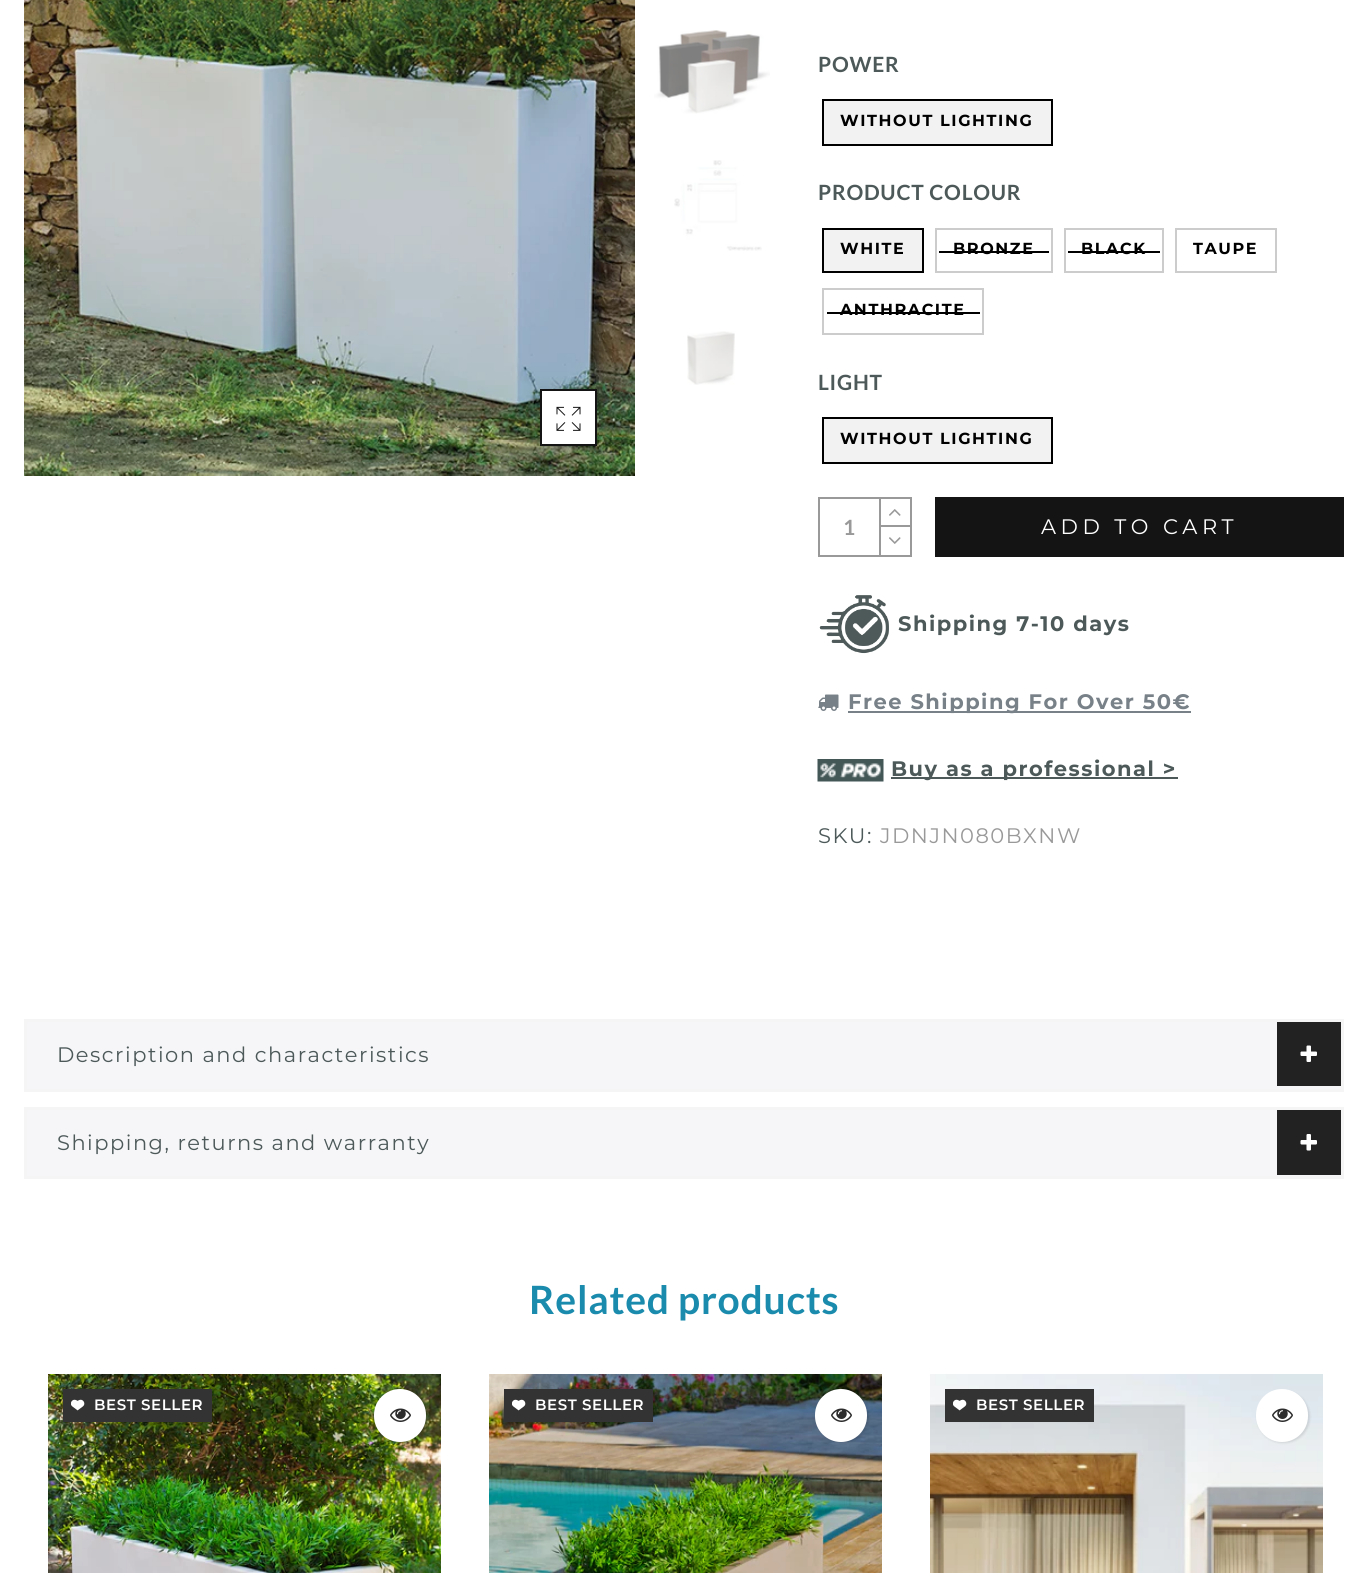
import math
import cairo


def use_color(cr, r, g, b):
  cr.set_source_rgb(r / 255, g / 255, b / 255)

def spaced_text(cr, x, y, s, letter, word):
  cr.move_to(x, y)
  for ch in s:
    cr.show_text(ch)
    cr.rel_move_to(letter + word * (ch == ' '), 0)

def box(cr, x, y, w, h, *color):
  use_color(cr, *color)
  cr.rectangle(x, y, w, h)
  cr.fill()

def round_rect(cr, x, y, w, h, r):
  cr.new_sub_path()
  for i, (u, v) in enumerate([(x + w - r, y + h - r), (x + r, y + h - r), (x + r, y + r), (x + w - r, y + r)]):
    cr.arc(u, v, r, i * math.pi / 2, (i + 1) * math.pi / 2)
  cr.close_path()

def shadow(cr, x, y, w, h, r, blur, alpha):
  cr.push_group_with_content(cairo.CONTENT_ALPHA)
  cr.set_operator(cairo.OPERATOR_SOURCE)
  for i in range(15, -16, -2):
    e = blur * i / 6
    if min(w, h) + 2 * e > 0:
      cr.set_source_rgba(0, 0, 0, alpha * math.erfc((i - 1) / 8.5) / 2)
      round_rect(cr, x - e, y - e, w + 2 * e, h + 2 * e, max(0, min(r + e + blur * .6, min(w, h) / 2 + e)))
      cr.fill()
  cr.mask(cr.pop_group())

def picture(cr, path, x, y, w, h):
  cr.save()
  cr.set_source_surface(cairo.ImageSurface.create_from_png(path), x, y)
  cr.rectangle(x, y, w, h)
  cr.fill()
  cr.restore()

def draw(cr):
  use_color(cr, 255, 255, 255)
  cr.paint()
  picture(cr, "img_01.png", 24, 0, 611, 476)
  picture(cr, "img_02.png", 654, 30, 116, 84)
  picture(cr, "img_03.png", 674, 160, 88, 91)
  picture(cr, "img_04.png", 687, 331, 48, 54)
  use_color(cr, 0, 0, 0)
  shadow(cr, 540, 389, 57, 57, 0, 7, 0.1)
  use_color(cr, 255, 255, 255)
  cr.rectangle(541, 390, 55, 55)
  cr.fill_preserve()
  use_color(cr, 20, 20, 20)
  cr.stroke()
  picture(cr, "img_05.png", 556, 406, 25, 25)
  use_color(cr, 242, 242, 242)
  cr.rectangle(823, 100, 229, 45)
  cr.fill_preserve()
  use_color(cr, 0, 0, 0)
  cr.stroke()
  use_color(cr, 242, 242, 242)
  cr.rectangle(823, 229, 100, 43)
  cr.fill_preserve()
  use_color(cr, 0, 0, 0)
  cr.stroke()
  cr.rectangle(936, 229, 116, 43)
  use_color(cr, 204, 204, 204)
  cr.stroke()
  box(cr, 939, 251, 110, 2, 0, 0, 0)
  cr.rectangle(1065, 229, 98, 43)
  use_color(cr, 204, 204, 204)
  cr.stroke()
  box(cr, 1068, 251, 92, 2, 0, 0, 0)
  cr.rectangle(1176, 229, 100, 43)
  use_color(cr, 204, 204, 204)
  cr.stroke()
  cr.rectangle(823, 289, 160, 45)
  cr.stroke()
  box(cr, 827, 312, 153, 2, 0, 0, 0)
  use_color(cr, 242, 242, 242)
  cr.rectangle(823, 418, 229, 45)
  cr.fill_preserve()
  use_color(cr, 0, 0, 0)
  cr.stroke()
  cr.rectangle(819, 498, 92, 58)
  use_color(cr, 153, 153, 153)
  cr.stroke()
  box(cr, 879, 498, 2, 59, 153, 153, 153)
  box(cr, 881, 525, 30, 2, 153, 153, 153)
  picture(cr, "img_06.png", 889, 509, 12, 7)
  picture(cr, "img_07.png", 889, 537, 12, 7)
  box(cr, 935, 497, 409, 60, 20, 20, 20)
  picture(cr, "img_08.png", 819, 595, 70, 59)
  picture(cr, "img_09.png", 818, 694, 21, 17)
  box(cr, 848, 711, 343, 2, 120, 129, 136)
  picture(cr, "img_10.png", 817, 759, 67, 23)
  box(cr, 891, 777, 287, 2, 77, 89, 89)
  use_color(cr, 246, 246, 248)
  cr.rectangle(25.5, 1020.5, 1317, 70)
  cr.fill_preserve()
  use_color(cr, 245, 245, 245)
  cr.set_line_width(3)
  cr.stroke()
  box(cr, 1277, 1022, 64, 64, 34, 34, 34)
  picture(cr, "img_11.png", 1300, 1045, 17, 17)
  use_color(cr, 246, 246, 248)
  cr.rectangle(25.5, 1108.5, 1317, 69)
  cr.fill_preserve()
  use_color(cr, 245, 245, 245)
  cr.stroke()
  box(cr, 1277, 1110, 64, 65, 34, 34, 34)
  picture(cr, "img_12.png", 1300, 1134, 17, 17)
  picture(cr, "img_13.png", 48, 1374, 393, 199)
  box(cr, 63, 1389, 149, 33, 51, 51, 51)
  picture(cr, "img_14.png", 71, 1399, 14, 12)
  use_color(cr, 0, 0, 0)
  shadow(cr, 375, 1391, 53, 52, 26, 1, 0.1)
  use_color(cr, 255, 255, 255)
  round_rect(cr, 374, 1389, 52, 53, 26)
  cr.fill()
  picture(cr, "img_15.png", 390, 1408, 21, 14)
  picture(cr, "img_16.png", 489, 1374, 393, 199)
  box(cr, 504, 1389, 149, 33, 51, 51, 51)
  picture(cr, "img_14.png", 512, 1399, 14, 12)
  use_color(cr, 0, 0, 0)
  shadow(cr, 816, 1391, 53, 52, 26, 1, 0.1)
  use_color(cr, 255, 255, 255)
  round_rect(cr, 815, 1389, 52, 53, 26)
  cr.fill()
  picture(cr, "img_15.png", 831, 1408, 21, 14)
  picture(cr, "img_17.png", 930, 1374, 393, 199)
  box(cr, 945, 1389, 149, 33, 51, 51, 51)
  picture(cr, "img_14.png", 953, 1399, 14, 12)
  use_color(cr, 0, 0, 0)
  shadow(cr, 1257, 1391, 53, 52, 26, 1, 0.1)
  use_color(cr, 255, 255, 255)
  round_rect(cr, 1256, 1389, 52, 53, 26)
  cr.fill()
  picture(cr, "img_15.png", 1272, 1408, 21, 14)
  cr.select_font_face("Lato", cairo.FONT_SLANT_NORMAL, cairo.FONT_WEIGHT_BOLD)
  cr.set_font_size(21)
  use_color(cr, 77, 89, 89)
  spaced_text(cr, 818, 72, "POWER", 0.75, 0)
  cr.select_font_face("Montserrat", cairo.FONT_SLANT_NORMAL, cairo.FONT_WEIGHT_BOLD)
  cr.set_font_size(16)
  use_color(cr, 0, 0, 0)
  spaced_text(cr, 840, 126, "WITHOUT LIGHTING", 1.6, 0)
  cr.select_font_face("Lato", cairo.FONT_SLANT_NORMAL, cairo.FONT_WEIGHT_BOLD)
  cr.set_font_size(21)
  use_color(cr, 77, 89, 89)
  spaced_text(cr, 818, 200, "PRODUCT COLOUR", 0.75, 0)
  cr.select_font_face("Montserrat", cairo.FONT_SLANT_NORMAL, cairo.FONT_WEIGHT_BOLD)
  cr.set_font_size(16)
  use_color(cr, 0, 0, 0)
  spaced_text(cr, 840, 254, "WHITE", 1.6, 0)
  spaced_text(cr, 953, 254, "BRONZE", 1.6, 0)
  spaced_text(cr, 1081, 254, "BLACK", 1.6, 0)
  spaced_text(cr, 1193, 254, "TAUPE", 1.6, 0)
  spaced_text(cr, 840, 315, "ANTHRACITE", 1.6, 0)
  cr.select_font_face("Lato", cairo.FONT_SLANT_NORMAL, cairo.FONT_WEIGHT_BOLD)
  cr.set_font_size(21)
  use_color(cr, 77, 89, 89)
  spaced_text(cr, 818, 390, "LIGHT", 0.75, 0)
  cr.select_font_face("Montserrat", cairo.FONT_SLANT_NORMAL, cairo.FONT_WEIGHT_BOLD)
  cr.set_font_size(16)
  use_color(cr, 0, 0, 0)
  spaced_text(cr, 840, 444, "WITHOUT LIGHTING", 1.6, 0)
  cr.select_font_face("Lato", cairo.FONT_SLANT_NORMAL, cairo.FONT_WEIGHT_BOLD)
  cr.set_font_size(21)
  use_color(cr, 153, 153, 153)
  spaced_text(cr, 843, 535, "1", 1.5, 0)
  cr.select_font_face("Montserrat Thin")
  use_color(cr, 255, 255, 255)
  spaced_text(cr, 1041, 534, "ADD TO CART", 4.5, 0)
  cr.select_font_face("Montserrat", cairo.FONT_SLANT_NORMAL, cairo.FONT_WEIGHT_BOLD)
  use_color(cr, 77, 89, 89)
  spaced_text(cr, 898, 631, "Shipping 7-10 days", 1.5, 0)
  use_color(cr, 120, 129, 136)
  spaced_text(cr, 848, 709, "Free Shipping For Over 50€", 1.5, 0)
  use_color(cr, 77, 89, 89)
  spaced_text(cr, 891, 776, "Buy as a professional >", 1.5, 0)
  cr.select_font_face("Montserrat Thin")
  spaced_text(cr, 818, 843, "SKU:", 1.5, 0)
  use_color(cr, 153, 153, 153)
  spaced_text(cr, 880, 843, "JDNJN080BXNW", 1.5, 0)
  use_color(cr, 77, 89, 89)
  spaced_text(cr, 57, 1062, "Description and characteristics", 1.5, 0)
  spaced_text(cr, 57, 1150, "Shipping, returns and warranty", 1.5, 0)
  cr.select_font_face("Lato", cairo.FONT_SLANT_NORMAL, cairo.FONT_WEIGHT_BOLD)
  cr.set_font_size(39)
  use_color(cr, 26, 139, 172)
  spaced_text(cr, 529, 1314, "Related products", 0.75, 0)
  cr.select_font_face("Montserrat SemiBold")
  cr.set_font_size(15)
  use_color(cr, 255, 255, 255)
  spaced_text(cr, 94, 1410, "BEST SELLER", 0.6, 0)
  spaced_text(cr, 535, 1410, "BEST SELLER", 0.6, 0)
  spaced_text(cr, 976, 1410, "BEST SELLER", 0.6, 0)


surface = cairo.ImageSurface(cairo.FORMAT_RGB24, 1368, 1573)
cr = cairo.Context(surface)
options = cairo.FontOptions()
options.set_hint_metrics(cairo.HINT_METRICS_OFF)
options.set_hint_style(cairo.HINT_STYLE_NONE)
cr.set_font_options(options)
cr.set_miter_limit(4)
draw(cr)
surface.write_to_png("out.png")
